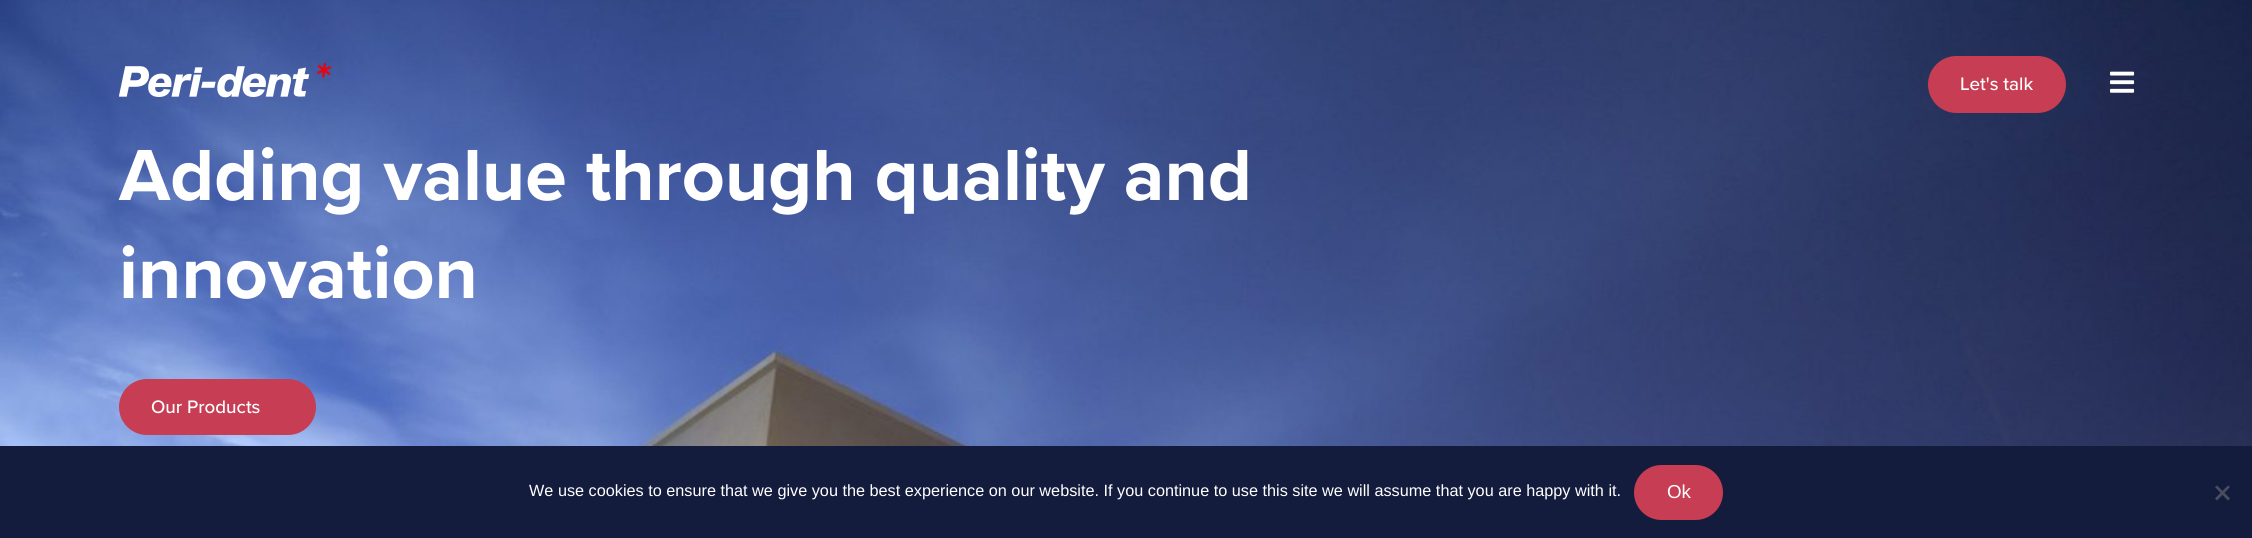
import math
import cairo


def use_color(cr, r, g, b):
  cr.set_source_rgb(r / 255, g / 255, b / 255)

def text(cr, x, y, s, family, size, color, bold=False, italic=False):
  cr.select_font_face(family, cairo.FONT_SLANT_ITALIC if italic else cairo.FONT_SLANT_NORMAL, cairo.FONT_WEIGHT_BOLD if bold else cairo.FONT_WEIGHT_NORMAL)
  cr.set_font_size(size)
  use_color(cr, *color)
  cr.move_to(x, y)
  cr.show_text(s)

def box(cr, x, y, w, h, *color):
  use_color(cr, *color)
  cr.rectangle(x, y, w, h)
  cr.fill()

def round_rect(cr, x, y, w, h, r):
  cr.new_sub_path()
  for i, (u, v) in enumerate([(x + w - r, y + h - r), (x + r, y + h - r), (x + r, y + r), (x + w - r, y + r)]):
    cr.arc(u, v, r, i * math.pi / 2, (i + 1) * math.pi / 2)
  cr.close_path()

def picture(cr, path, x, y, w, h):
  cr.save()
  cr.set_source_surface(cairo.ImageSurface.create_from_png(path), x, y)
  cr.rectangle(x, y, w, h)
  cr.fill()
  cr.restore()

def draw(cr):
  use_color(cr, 255, 255, 255)
  cr.paint()
  picture(cr, "img_03.png", 0, 0, 2252, 446)
  picture(cr, "img_01.png", 119, 63, 212, 35)
  use_color(cr, 199, 61, 83)
  round_rect(cr, 1928, 56, 138, 57, 28.5)
  cr.fill()
  picture(cr, "img_02.png", 2110, 71, 25, 22)
  round_rect(cr, 119, 379, 197, 56, 28)
  cr.fill()
  box(cr, 0, 446, 2252, 92, 20, 28, 62)
  use_color(cr, 199, 61, 83)
  round_rect(cr, 1634, 465, 89, 55, 27.5)
  cr.fill()
  use_color(cr, 74, 78, 95)
  cr.new_path()
  cr.move_to(2228, 485.5)
  cr.line_to(2230, 487)
  cr.line_to(2217, 500.5)
  cr.line_to(2215, 498.5)
  cr.close_path()
  cr.fill()
  cr.new_path()
  cr.move_to(2215, 487)
  cr.line_to(2217, 485.5)
  cr.line_to(2230, 498.5)
  cr.line_to(2228, 500.5)
  cr.close_path()
  cr.fill()
  text(cr, 1960, 90, "Let's talk", "Proxima Nova Medium", 18.75, (255, 255, 255))
  text(cr, 119, 200, "Adding value through quality and", "Proxima Nova", 75, (255, 255, 255), bold=True)
  text(cr, 119, 298, "innovation", "Proxima Nova", 75, (255, 255, 255), bold=True)
  text(cr, 151, 413, "Our Products", "Proxima Nova Medium", 18.75, (255, 255, 255))
  text(cr, 529, 496, "We use cookies to ensure that we give you the best experience on our website. If you continue to use this site we will assume that you are happy with it.", "Liberation Sans", 16.25, (255, 255, 255))
  text(cr, 1667, 498, "Ok", "Liberation Sans", 18.75, (255, 255, 255))


surface = cairo.ImageSurface(cairo.FORMAT_RGB24, 2252, 538)
cr = cairo.Context(surface)
options = cairo.FontOptions()
options.set_hint_metrics(cairo.HINT_METRICS_OFF)
options.set_hint_style(cairo.HINT_STYLE_NONE)
cr.set_font_options(options)
cr.set_miter_limit(4)
draw(cr)
surface.write_to_png("out.png")
